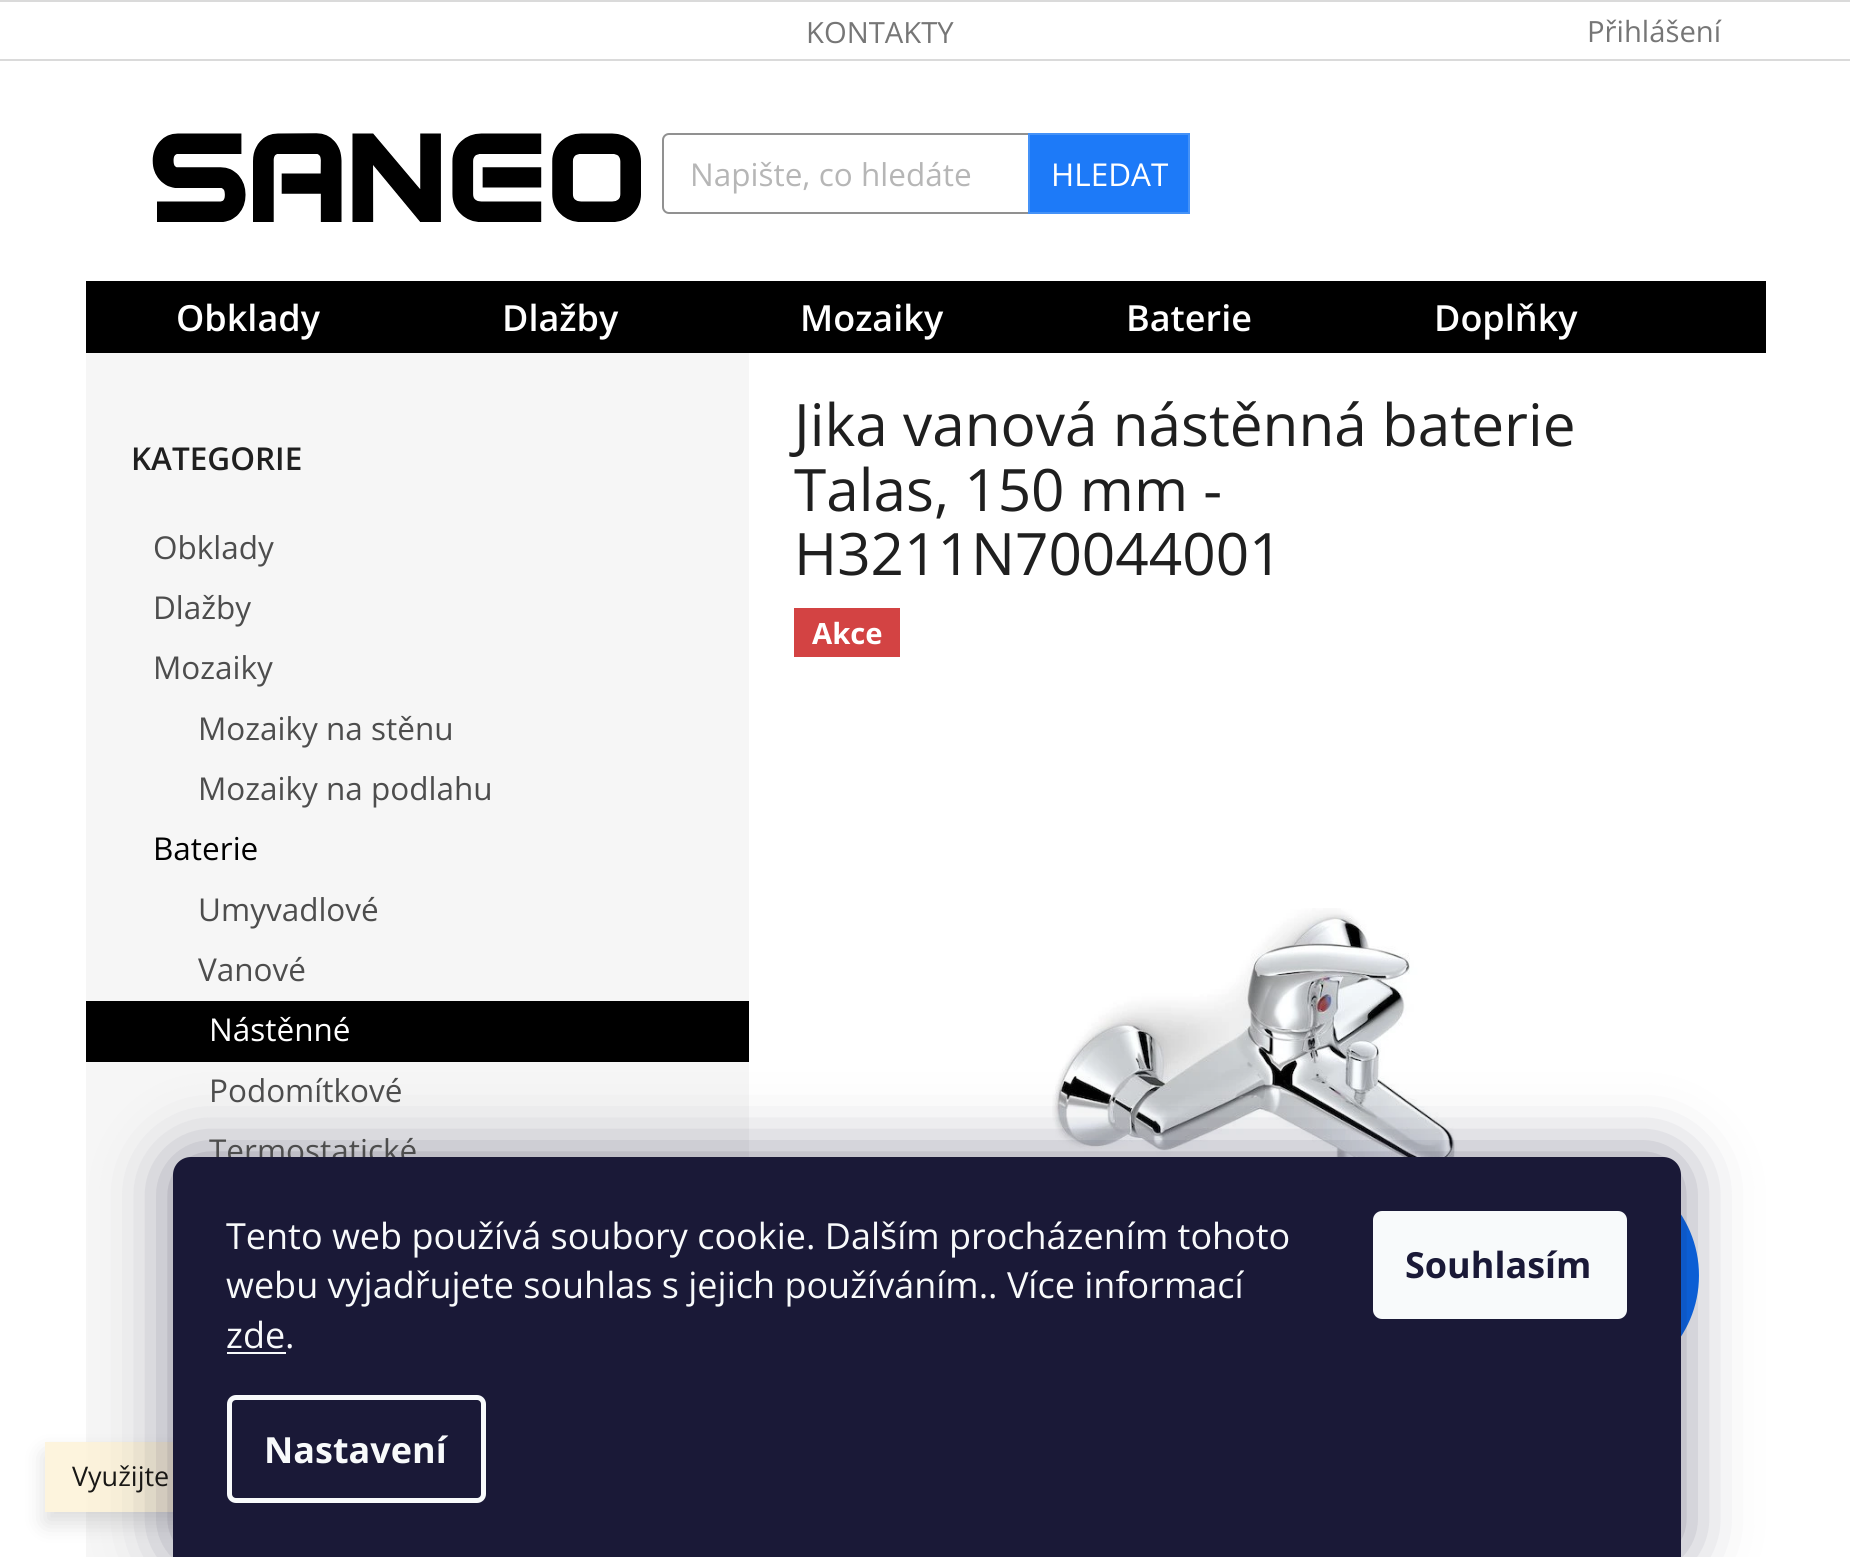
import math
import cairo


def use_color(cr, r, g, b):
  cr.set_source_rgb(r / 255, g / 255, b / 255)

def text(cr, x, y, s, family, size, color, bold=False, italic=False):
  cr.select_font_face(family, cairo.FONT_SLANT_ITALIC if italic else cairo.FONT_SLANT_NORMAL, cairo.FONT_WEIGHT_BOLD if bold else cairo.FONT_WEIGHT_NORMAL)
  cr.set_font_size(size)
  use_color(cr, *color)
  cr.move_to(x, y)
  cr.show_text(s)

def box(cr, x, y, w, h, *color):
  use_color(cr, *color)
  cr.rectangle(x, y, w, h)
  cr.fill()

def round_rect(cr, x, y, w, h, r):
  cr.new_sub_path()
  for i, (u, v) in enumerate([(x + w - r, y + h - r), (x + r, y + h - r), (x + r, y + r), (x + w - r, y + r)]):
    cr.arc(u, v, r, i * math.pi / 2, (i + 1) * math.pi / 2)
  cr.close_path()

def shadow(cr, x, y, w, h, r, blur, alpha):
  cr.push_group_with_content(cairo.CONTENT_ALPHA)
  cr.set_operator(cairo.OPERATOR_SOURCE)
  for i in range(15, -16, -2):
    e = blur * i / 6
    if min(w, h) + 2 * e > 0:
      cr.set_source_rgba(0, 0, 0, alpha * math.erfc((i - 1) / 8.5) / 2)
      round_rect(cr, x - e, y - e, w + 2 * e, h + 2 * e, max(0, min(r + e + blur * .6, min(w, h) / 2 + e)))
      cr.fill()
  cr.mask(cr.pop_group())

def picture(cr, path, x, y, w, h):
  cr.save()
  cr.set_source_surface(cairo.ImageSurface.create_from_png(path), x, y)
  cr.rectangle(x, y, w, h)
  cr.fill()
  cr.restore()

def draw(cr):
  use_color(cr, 255, 255, 255)
  cr.paint()
  box(cr, 0, 0, 1850, 2, 218, 218, 218)
  box(cr, 0, 59, 1850, 2, 218, 218, 218)
  picture(cr, "img_01.png", 152, 133, 489, 89)
  round_rect(cr, 663, 134, 526, 79, 6)
  use_color(cr, 145, 145, 145)
  cr.stroke()
  use_color(cr, 29, 122, 248)
  cr.rectangle(1029, 134, 160, 79)
  cr.fill_preserve()
  use_color(cr, 69, 146, 247)
  cr.stroke()
  box(cr, 86, 281, 1680, 72, 0, 0, 0)
  box(cr, 86, 353, 663, 1204, 246, 246, 246)
  box(cr, 86, 1001, 663, 61, 0, 0, 0)
  box(cr, 794, 608, 106, 49, 211, 67, 67)
  picture(cr, "img_02.png", 1052, 908, 405, 249)
  use_color(cr, 8, 109, 247)
  cr.arc(1586.5, 1275.5, 112.5, 0, 2 * math.pi)
  cr.fill()
  cr.save()
  cr.set_fill_rule(cairo.FILL_RULE_EVEN_ODD)
  cr.new_path()
  cr.move_to(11, 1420)
  cr.line_to(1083, 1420)
  cr.line_to(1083, 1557)
  cr.line_to(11, 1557)
  cr.close_path()
  cr.move_to(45, 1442)
  cr.line_to(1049, 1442)
  cr.line_to(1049, 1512)
  cr.line_to(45, 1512)
  cr.close_path()
  cr.clip()
  use_color(cr, 0, 0, 0)
  shadow(cr, 45, 1454, 1004, 69, 0, 11, 0.14)
  cr.restore()
  cr.set_source_rgba(0.992, 0.953, 0.855, 0.9)
  cr.rectangle(45, 1442, 128, 70)
  cr.fill()
  use_color(cr, 27, 25, 57)
  shadow(cr, 173, 1157, 1508, 400, 18, 34, 0.5)
  text(cr, 806, 43, "KONTAKTY", "Open Sans", 29.25, (118, 118, 118))
  text(cr, 1587, 42, "Přihlášení", "Open Sans", 29.25, (118, 118, 118))
  text(cr, 690, 186, "Napište, co hledáte", "Open Sans", 31.5, (182, 182, 182))
  text(cr, 1051, 186, "HLEDAT", "Open Sans", 31.5, (255, 255, 255))
  text(cr, 176, 331, "Obklady", "Open Sans SemiBold", 36, (255, 255, 255))
  text(cr, 502, 331, "Dlažby", "Open Sans SemiBold", 36, (255, 255, 255))
  text(cr, 800, 331, "Mozaiky", "Open Sans SemiBold", 36, (255, 255, 255))
  text(cr, 1126, 331, "Baterie", "Open Sans SemiBold", 36, (255, 255, 255))
  text(cr, 1434, 331, "Doplňky", "Open Sans SemiBold", 36, (255, 255, 255))
  text(cr, 131, 470, "KATEGORIE", "Open Sans SemiBold", 31.5, (31, 31, 31))
  text(cr, 153, 559, "Obklady", "Open Sans", 31.5, (77, 77, 77))
  text(cr, 153, 619, "Dlažby", "Open Sans", 31.5, (77, 77, 77))
  text(cr, 153, 679, "Mozaiky", "Open Sans", 31.5, (77, 77, 77))
  text(cr, 198, 740, "Mozaiky na stěnu", "Open Sans", 31.5, (77, 77, 77))
  text(cr, 198, 800, "Mozaiky na podlahu", "Open Sans", 31.5, (77, 77, 77))
  text(cr, 153, 860, "Baterie", "Open Sans", 31.5, (0, 0, 0))
  text(cr, 198, 921, "Umyvadlové", "Open Sans", 31.5, (77, 77, 77))
  text(cr, 198, 981, "Vanové", "Open Sans", 31.5, (77, 77, 77))
  text(cr, 209, 1041, "Nástěnné", "Open Sans", 31.5, (255, 255, 255))
  text(cr, 209, 1102, "Podomítkové", "Open Sans", 31.5, (77, 77, 77))
  text(cr, 209, 1162, "Termostatické", "Open Sans", 31.5, (77, 77, 77))
  text(cr, 794, 446, "Jika vanová nástěnná baterie", "Open Sans", 58.5, (31, 31, 31))
  text(cr, 794, 511, "Talas, 150 mm -", "Open Sans", 58.5, (31, 31, 31))
  text(cr, 794, 575, "H3211N70044001", "Open Sans", 58.5, (31, 31, 31))
  text(cr, 812, 644, "Akce", "Open Sans", 29.25, (255, 255, 255), bold=True)
  text(cr, 72, 1486, "Využijte", "Open Sans", 27, (25, 24, 22))
  use_color(cr, 26, 25, 55)
  cr.new_path()
  cr.move_to(191, 1157)
  cr.line_to(1663, 1157)
  cr.curve_to(1673, 1157, 1681, 1165, 1681, 1175)
  cr.line_to(1681, 1557)
  cr.line_to(173, 1557)
  cr.line_to(173, 1175)
  cr.curve_to(173, 1165, 181, 1157, 191, 1157)
  cr.close_path()
  cr.fill()
  text(cr, 226, 1249, "Tento web používá soubory cookie. Dalším procházením tohoto", "Open Sans", 36, (248, 250, 251))
  text(cr, 226, 1298, "webu vyjadřujete souhlas s jejich používáním.. Více informací", "Open Sans", 36, (248, 250, 251))
  text(cr, 226, 1348, "zde.", "Open Sans", 36, (248, 250, 251))
  box(cr, 227, 1352, 59, 2, 248, 250, 251)
  round_rect(cr, 229.5, 1397.5, 254, 103, 6.5)
  cr.set_line_width(5)
  cr.stroke()
  text(cr, 264, 1463, "Nastavení", "Open Sans", 36, (248, 250, 251), bold=True)
  round_rect(cr, 1373, 1211, 254, 108, 9)
  cr.fill()
  text(cr, 1405, 1278, "Souhlasím", "Open Sans", 36, (26, 25, 55), bold=True)


surface = cairo.ImageSurface(cairo.FORMAT_RGB24, 1850, 1557)
cr = cairo.Context(surface)
options = cairo.FontOptions()
options.set_hint_metrics(cairo.HINT_METRICS_OFF)
options.set_hint_style(cairo.HINT_STYLE_NONE)
cr.set_font_options(options)
cr.set_miter_limit(4)
draw(cr)
surface.write_to_png("out.png")
